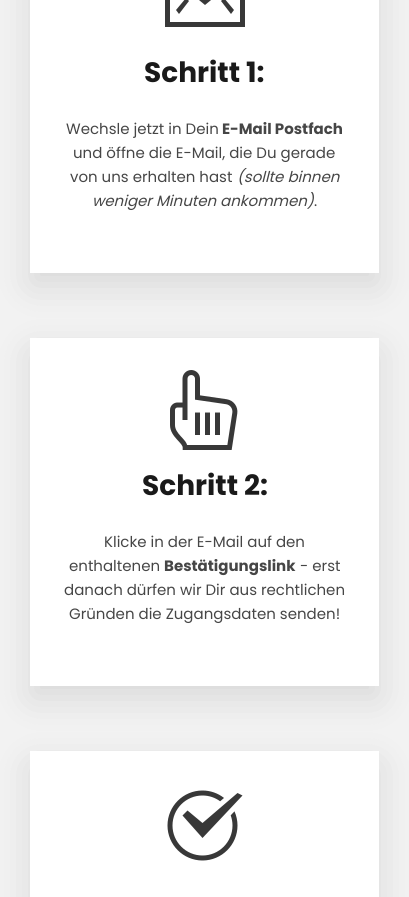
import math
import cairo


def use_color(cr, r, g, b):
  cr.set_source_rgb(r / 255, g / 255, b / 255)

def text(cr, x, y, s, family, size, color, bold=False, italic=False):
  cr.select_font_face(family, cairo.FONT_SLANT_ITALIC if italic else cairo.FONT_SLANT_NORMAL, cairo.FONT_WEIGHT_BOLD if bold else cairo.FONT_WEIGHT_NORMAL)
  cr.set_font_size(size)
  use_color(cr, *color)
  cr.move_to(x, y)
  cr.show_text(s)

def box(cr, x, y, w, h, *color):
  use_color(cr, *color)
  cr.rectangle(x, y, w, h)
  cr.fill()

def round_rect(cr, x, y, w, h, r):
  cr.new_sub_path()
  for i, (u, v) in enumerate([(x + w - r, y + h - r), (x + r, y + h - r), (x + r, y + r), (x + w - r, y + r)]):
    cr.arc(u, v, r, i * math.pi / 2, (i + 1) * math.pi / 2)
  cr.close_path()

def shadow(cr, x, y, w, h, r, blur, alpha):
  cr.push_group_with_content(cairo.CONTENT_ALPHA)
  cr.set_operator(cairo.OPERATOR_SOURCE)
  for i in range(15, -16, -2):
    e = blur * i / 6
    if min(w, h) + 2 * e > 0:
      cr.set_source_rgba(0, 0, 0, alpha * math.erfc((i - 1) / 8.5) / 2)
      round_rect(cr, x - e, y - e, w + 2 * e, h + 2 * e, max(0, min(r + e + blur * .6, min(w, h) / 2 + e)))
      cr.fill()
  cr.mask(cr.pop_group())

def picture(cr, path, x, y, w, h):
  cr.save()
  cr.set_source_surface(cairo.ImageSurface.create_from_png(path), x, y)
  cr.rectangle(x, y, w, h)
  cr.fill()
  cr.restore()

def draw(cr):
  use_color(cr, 242, 242, 242)
  cr.paint()
  use_color(cr, 0, 0, 0)
  shadow(cr, 31, -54, 347, 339, 0, 18, 0.11)
  box(cr, 30, 0, 349, 273, 255, 255, 255)
  use_color(cr, 56, 56, 56)
  cr.new_path()
  cr.move_to(165, -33)
  cr.line_to(165, 27)
  cr.line_to(245, 27)
  cr.line_to(245, -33)
  cr.close_path()
  cr.move_to(170, -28)
  cr.line_to(240, -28)
  cr.line_to(240, 22)
  cr.line_to(170, 22)
  cr.close_path()
  cr.move_to(179, -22)
  cr.line_to(176, -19)
  cr.line_to(205, 5)
  cr.line_to(234, -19)
  cr.line_to(231, -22)
  cr.line_to(205, -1)
  cr.close_path()
  cr.move_to(186, -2)
  cr.line_to(176, 10)
  cr.line_to(179, 14)
  cr.line_to(189, 1)
  cr.close_path()
  cr.move_to(224, -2)
  cr.line_to(221, 1)
  cr.line_to(231, 14)
  cr.line_to(234, 10)
  cr.close_path()
  cr.fill()
  use_color(cr, 0, 0, 0)
  shadow(cr, 31, 352, 347, 346, 0, 18, 0.11)
  box(cr, 30, 338, 349, 348, 255, 255, 255)
  picture(cr, "img_01.png", 170, 370, 68, 80)
  use_color(cr, 0, 0, 0)
  shadow(cr, 31, 765, 347, 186, 0, 18, 0.11)
  box(cr, 30, 751, 349, 146, 255, 255, 255)
  picture(cr, "img_02.png", 167, 790, 76, 71)
  text(cr, 144, 82, "Schritt 1:", "Poppins", 28, (26, 26, 26), bold=True)
  text(cr, 66, 134, "Wechsle jetzt in Dein", "Poppins", 15, (70, 70, 70))
  text(cr, 222, 134, "E-Mail Postfach", "Poppins", 15, (70, 70, 70), bold=True)
  text(cr, 73, 158, "und öffne die E-Mail, die Du gerade", "Poppins", 15, (70, 70, 70))
  text(cr, 70, 182, "von uns erhalten hast", "Poppins", 15, (70, 70, 70))
  text(cr, 237, 182, "(sollte binnen", "Poppins", 15, (70, 70, 70), italic=True)
  text(cr, 92, 206, "weniger Minuten ankommen)", "Poppins", 15, (70, 70, 70), italic=True)
  text(cr, 314, 206, ".", "Poppins", 15, (70, 70, 70))
  text(cr, 142, 495, "Schritt 2:", "Poppins", 28, (26, 26, 26), bold=True)
  text(cr, 104, 547, "Klicke in der E-Mail auf den", "Poppins", 15, (70, 70, 70))
  text(cr, 69, 571, "enthaltenen", "Poppins", 15, (70, 70, 70))
  text(cr, 164, 571, "Bestätigungslink", "Poppins", 15, (70, 70, 70), bold=True)
  text(cr, 300, 571, "- erst", "Poppins", 15, (70, 70, 70))
  text(cr, 64, 595, "danach dürfen wir Dir aus rechtlichen", "Poppins", 15, (70, 70, 70))
  text(cr, 69, 619, "Gründen die Zugangsdaten senden!", "Poppins", 15, (70, 70, 70))


surface = cairo.ImageSurface(cairo.FORMAT_RGB24, 409, 897)
cr = cairo.Context(surface)
options = cairo.FontOptions()
options.set_hint_metrics(cairo.HINT_METRICS_OFF)
options.set_hint_style(cairo.HINT_STYLE_NONE)
cr.set_font_options(options)
cr.set_miter_limit(4)
draw(cr)
surface.write_to_png("out.png")
